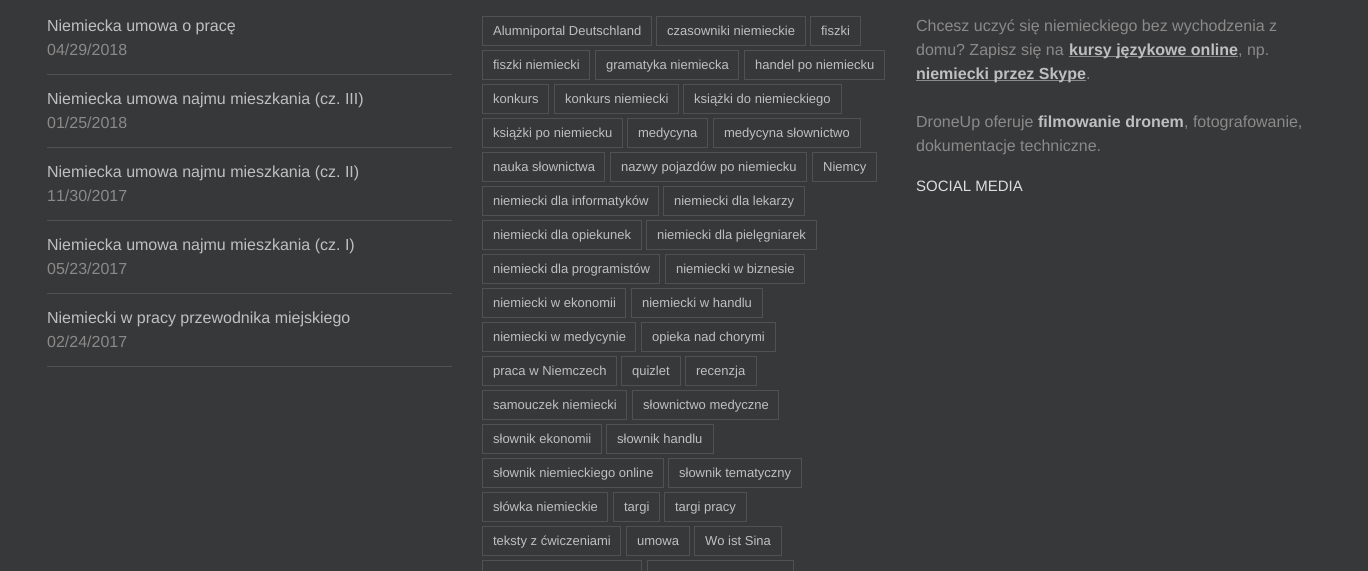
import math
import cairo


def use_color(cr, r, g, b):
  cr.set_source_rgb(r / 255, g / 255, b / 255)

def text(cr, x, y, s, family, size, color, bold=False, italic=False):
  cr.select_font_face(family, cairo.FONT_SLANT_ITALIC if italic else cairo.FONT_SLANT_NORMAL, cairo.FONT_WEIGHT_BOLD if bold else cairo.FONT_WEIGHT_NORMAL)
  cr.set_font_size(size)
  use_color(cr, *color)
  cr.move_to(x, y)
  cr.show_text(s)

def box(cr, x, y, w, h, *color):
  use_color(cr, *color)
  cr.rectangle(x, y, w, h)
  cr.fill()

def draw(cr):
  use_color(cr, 54, 56, 57)
  cr.paint()
  box(cr, 47, 74, 405, 1, 80, 81, 82)
  box(cr, 47, 147, 405, 1, 80, 81, 82)
  box(cr, 47, 220, 405, 1, 80, 81, 82)
  box(cr, 47, 293, 405, 1, 80, 81, 82)
  box(cr, 47, 366, 405, 1, 80, 81, 82)
  cr.rectangle(482.5, 16.5, 169, 29)
  cr.set_line_width(1)
  cr.stroke()
  cr.rectangle(656.5, 16.5, 149, 29)
  cr.stroke()
  cr.rectangle(810.5, 16.5, 50, 29)
  cr.stroke()
  cr.rectangle(482.5, 50.5, 107, 29)
  cr.stroke()
  cr.rectangle(595.5, 50.5, 143, 29)
  cr.stroke()
  cr.rectangle(744.5, 50.5, 140, 29)
  cr.stroke()
  cr.rectangle(482.5, 84.5, 66, 29)
  cr.stroke()
  cr.rectangle(554.5, 84.5, 124, 29)
  cr.stroke()
  cr.rectangle(683.5, 84.5, 158, 29)
  cr.stroke()
  cr.rectangle(482.5, 118.5, 140, 29)
  cr.stroke()
  cr.rectangle(627.5, 118.5, 80, 29)
  cr.stroke()
  cr.rectangle(713.5, 118.5, 147, 29)
  cr.stroke()
  cr.rectangle(482.5, 152.5, 122, 29)
  cr.stroke()
  cr.rectangle(610.5, 152.5, 196, 29)
  cr.stroke()
  cr.rectangle(812.5, 152.5, 64, 29)
  cr.stroke()
  cr.rectangle(482.5, 186.5, 176, 29)
  cr.stroke()
  cr.rectangle(663.5, 186.5, 141, 29)
  cr.stroke()
  cr.rectangle(482.5, 220.5, 159, 29)
  cr.stroke()
  cr.rectangle(646.5, 220.5, 170, 29)
  cr.stroke()
  cr.rectangle(482.5, 254.5, 177, 29)
  cr.stroke()
  cr.rectangle(665.5, 254.5, 139, 29)
  cr.stroke()
  cr.rectangle(482.5, 288.5, 143, 29)
  cr.stroke()
  cr.rectangle(631.5, 288.5, 131, 29)
  cr.stroke()
  cr.rectangle(482.5, 322.5, 153, 29)
  cr.stroke()
  cr.rectangle(641.5, 322.5, 134, 29)
  cr.stroke()
  cr.rectangle(482.5, 356.5, 134, 29)
  cr.stroke()
  cr.rectangle(621.5, 356.5, 59, 29)
  cr.stroke()
  cr.rectangle(685.5, 356.5, 71, 29)
  cr.stroke()
  cr.rectangle(482.5, 390.5, 144, 29)
  cr.stroke()
  cr.rectangle(632.5, 390.5, 146, 29)
  cr.stroke()
  cr.rectangle(482.5, 424.5, 119, 29)
  cr.stroke()
  cr.rectangle(606.5, 424.5, 107, 29)
  cr.stroke()
  cr.rectangle(482.5, 458.5, 181, 29)
  cr.stroke()
  cr.rectangle(668.5, 458.5, 133, 29)
  cr.stroke()
  cr.rectangle(482.5, 492.5, 125, 29)
  cr.stroke()
  cr.rectangle(613.5, 492.5, 46, 29)
  cr.stroke()
  cr.rectangle(664.5, 492.5, 82, 29)
  cr.stroke()
  cr.rectangle(482.5, 526.5, 138, 29)
  cr.stroke()
  cr.rectangle(626.5, 526.5, 63, 29)
  cr.stroke()
  cr.rectangle(694.5, 526.5, 87, 29)
  cr.stroke()
  cr.rectangle(482.5, 560.5, 159, 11)
  cr.stroke()
  cr.rectangle(647.5, 560.5, 146, 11)
  cr.stroke()
  box(cr, 1069, 56, 169, 1, 140, 137, 137)
  box(cr, 916, 80, 170, 1, 140, 137, 137)
  text(cr, 47, 31, "Niemiecka umowa o pracę", "Liberation Sans", 16, (191, 191, 191))
  text(cr, 47, 55, "04/29/2018", "Liberation Sans", 16, (140, 137, 137))
  text(cr, 47, 104, "Niemiecka umowa najmu mieszkania (cz. III)", "Liberation Sans", 16, (191, 191, 191))
  text(cr, 47, 128, "01/25/2018", "Liberation Sans", 16, (140, 137, 137))
  text(cr, 47, 177, "Niemiecka umowa najmu mieszkania (cz. II)", "Liberation Sans", 16, (191, 191, 191))
  text(cr, 47, 201, "11/30/2017", "Liberation Sans", 16, (140, 137, 137))
  text(cr, 47, 250, "Niemiecka umowa najmu mieszkania (cz. I)", "Liberation Sans", 16, (191, 191, 191))
  text(cr, 47, 274, "05/23/2017", "Liberation Sans", 16, (140, 137, 137))
  text(cr, 47, 323, "Niemiecki w pracy przewodnika miejskiego", "Liberation Sans", 16, (191, 191, 191))
  text(cr, 47, 347, "02/24/2017", "Liberation Sans", 16, (140, 137, 137))
  text(cr, 493, 35, "Alumniportal Deutschland", "Liberation Sans", 13, (191, 191, 191))
  text(cr, 667, 35, "czasowniki niemieckie", "Liberation Sans", 13, (191, 191, 191))
  text(cr, 821, 35, "fiszki", "Liberation Sans", 13, (191, 191, 191))
  text(cr, 493, 69, "fiszki niemiecki", "Liberation Sans", 13, (191, 191, 191))
  text(cr, 606, 69, "gramatyka niemiecka", "Liberation Sans", 13, (191, 191, 191))
  text(cr, 755, 69, "handel po niemiecku", "Liberation Sans", 13, (191, 191, 191))
  text(cr, 493, 103, "konkurs", "Liberation Sans", 13, (191, 191, 191))
  text(cr, 565, 103, "konkurs niemiecki", "Liberation Sans", 13, (191, 191, 191))
  text(cr, 694, 103, "książki do niemieckiego", "Liberation Sans", 13, (191, 191, 191))
  text(cr, 493, 137, "książki po niemiecku", "Liberation Sans", 13, (191, 191, 191))
  text(cr, 638, 137, "medycyna", "Liberation Sans", 13, (191, 191, 191))
  text(cr, 724, 137, "medycyna słownictwo", "Liberation Sans", 13, (191, 191, 191))
  text(cr, 493, 171, "nauka słownictwa", "Liberation Sans", 13, (191, 191, 191))
  text(cr, 621, 171, "nazwy pojazdów po niemiecku", "Liberation Sans", 13, (191, 191, 191))
  text(cr, 823, 171, "Niemcy", "Liberation Sans", 13, (191, 191, 191))
  text(cr, 493, 205, "niemiecki dla informatyków", "Liberation Sans", 13, (191, 191, 191))
  text(cr, 674, 205, "niemiecki dla lekarzy", "Liberation Sans", 13, (191, 191, 191))
  text(cr, 493, 239, "niemiecki dla opiekunek", "Liberation Sans", 13, (191, 191, 191))
  text(cr, 657, 239, "niemiecki dla pielęgniarek", "Liberation Sans", 13, (191, 191, 191))
  text(cr, 493, 273, "niemiecki dla programistów", "Liberation Sans", 13, (191, 191, 191))
  text(cr, 676, 273, "niemiecki w biznesie", "Liberation Sans", 13, (191, 191, 191))
  text(cr, 493, 307, "niemiecki w ekonomii", "Liberation Sans", 13, (191, 191, 191))
  text(cr, 642, 307, "niemiecki w handlu", "Liberation Sans", 13, (191, 191, 191))
  text(cr, 493, 341, "niemiecki w medycynie", "Liberation Sans", 13, (191, 191, 191))
  text(cr, 652, 341, "opieka nad chorymi", "Liberation Sans", 13, (191, 191, 191))
  text(cr, 493, 375, "praca w Niemczech", "Liberation Sans", 13, (191, 191, 191))
  text(cr, 632, 375, "quizlet", "Liberation Sans", 13, (191, 191, 191))
  text(cr, 696, 375, "recenzja", "Liberation Sans", 13, (191, 191, 191))
  text(cr, 493, 409, "samouczek niemiecki", "Liberation Sans", 13, (191, 191, 191))
  text(cr, 643, 409, "słownictwo medyczne", "Liberation Sans", 13, (191, 191, 191))
  text(cr, 493, 443, "słownik ekonomii", "Liberation Sans", 13, (191, 191, 191))
  text(cr, 617, 443, "słownik handlu", "Liberation Sans", 13, (191, 191, 191))
  text(cr, 493, 477, "słownik niemieckiego online", "Liberation Sans", 13, (191, 191, 191))
  text(cr, 679, 477, "słownik tematyczny", "Liberation Sans", 13, (191, 191, 191))
  text(cr, 493, 511, "słówka niemieckie", "Liberation Sans", 13, (191, 191, 191))
  text(cr, 624, 511, "targi", "Liberation Sans", 13, (191, 191, 191))
  text(cr, 675, 511, "targi pracy", "Liberation Sans", 13, (191, 191, 191))
  text(cr, 493, 545, "teksty z ćwiczeniami", "Liberation Sans", 13, (191, 191, 191))
  text(cr, 637, 545, "umowa", "Liberation Sans", 13, (191, 191, 191))
  text(cr, 705, 545, "Wo ist Sina", "Liberation Sans", 13, (191, 191, 191))
  text(cr, 916, 31, "Chcesz uczyć się niemieckiego bez wychodzenia z", "Liberation Sans", 16, (140, 137, 137))
  text(cr, 916, 55, "domu? Zapisz się na", "Liberation Sans", 16, (140, 137, 137))
  text(cr, 1069, 55, "kursy językowe online", "Liberation Sans", 16, (191, 191, 191), bold=True)
  text(cr, 1238, 55, ", np.", "Liberation Sans", 16, (140, 137, 137))
  text(cr, 916, 79, "niemiecki przez Skype", "Liberation Sans", 16, (191, 191, 191), bold=True)
  text(cr, 1086, 79, ".", "Liberation Sans", 16, (140, 137, 137))
  text(cr, 916, 127, "DroneUp oferuje", "Liberation Sans", 16, (140, 137, 137))
  text(cr, 1038, 127, "filmowanie dronem", "Liberation Sans", 16, (191, 191, 191), bold=True)
  text(cr, 1184, 127, ", fotografowanie,", "Liberation Sans", 16, (140, 137, 137))
  text(cr, 916, 151, "dokumentacje techniczne.", "Liberation Sans", 16, (140, 137, 137))
  text(cr, 916, 191, "SOCIAL MEDIA", "Liberation Sans", 15, (221, 221, 221))


surface = cairo.ImageSurface(cairo.FORMAT_RGB24, 1368, 571)
cr = cairo.Context(surface)
options = cairo.FontOptions()
options.set_hint_metrics(cairo.HINT_METRICS_OFF)
options.set_hint_style(cairo.HINT_STYLE_NONE)
cr.set_font_options(options)
cr.set_miter_limit(4)
draw(cr)
surface.write_to_png("out.png")
